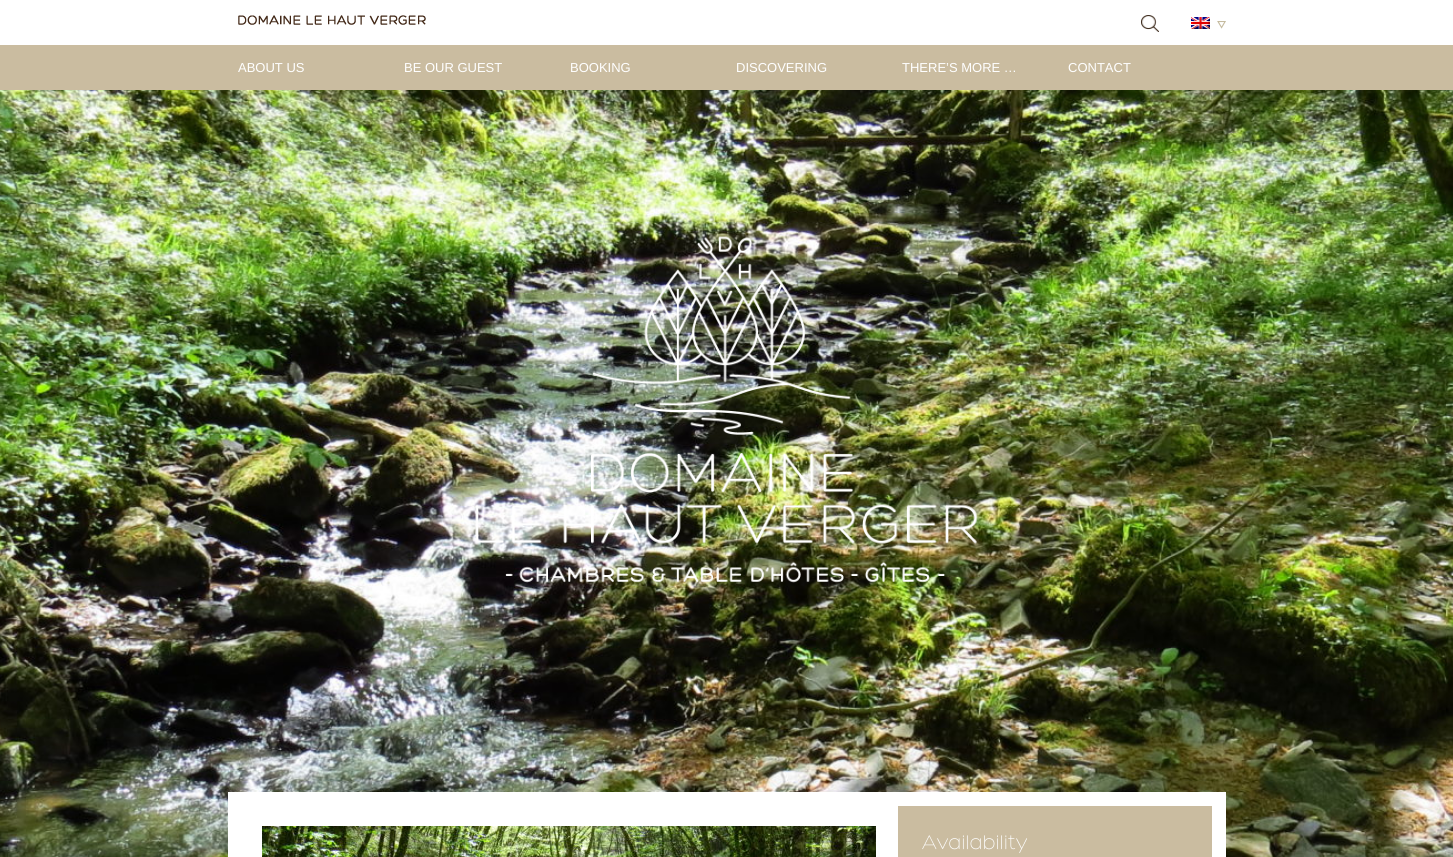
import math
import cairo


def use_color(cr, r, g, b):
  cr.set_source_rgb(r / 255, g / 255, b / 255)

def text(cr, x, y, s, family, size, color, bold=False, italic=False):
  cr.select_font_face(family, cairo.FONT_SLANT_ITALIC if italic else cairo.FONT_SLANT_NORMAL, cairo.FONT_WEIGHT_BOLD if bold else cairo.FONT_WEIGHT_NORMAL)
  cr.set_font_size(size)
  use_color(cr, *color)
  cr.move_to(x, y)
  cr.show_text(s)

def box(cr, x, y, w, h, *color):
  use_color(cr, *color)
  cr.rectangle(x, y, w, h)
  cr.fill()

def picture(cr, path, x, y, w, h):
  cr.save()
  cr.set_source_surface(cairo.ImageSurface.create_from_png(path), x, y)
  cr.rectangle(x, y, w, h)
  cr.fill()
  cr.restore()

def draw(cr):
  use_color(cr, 255, 255, 255)
  cr.paint()
  box(cr, 0, 45, 1453, 45, 202, 188, 160)
  picture(cr, "img_01.png", 238, 15, 188, 10)
  picture(cr, "img_02.png", 1141, 15, 18, 17)
  picture(cr, "img_03.png", 1191, 17, 19, 12)
  picture(cr, "img_04.png", 1217, 21, 9, 8)
  picture(cr, "img_05.png", 0, 90, 1453, 767)
  picture(cr, "img_06.png", 475, 236, 503, 347)
  box(cr, 228, 792, 998, 65, 255, 255, 255)
  picture(cr, "img_07.png", 262, 826, 614, 31)
  box(cr, 898, 806, 314, 51, 202, 188, 160)
  text(cr, 238, 72, "ABOUT US", "Liberation Sans", 13, (255, 255, 255))
  text(cr, 404, 72, "BE OUR GUEST", "Liberation Sans", 13, (255, 255, 255))
  text(cr, 570, 72, "BOOKING", "Liberation Sans", 13, (255, 255, 255))
  text(cr, 736, 72, "DISCOVERING", "Liberation Sans", 13, (255, 255, 255))
  text(cr, 902, 72, "THERE’S MORE …", "Liberation Sans", 13, (255, 255, 255))
  text(cr, 1068, 72, "CONTACT", "Liberation Sans", 13, (255, 255, 255))
  text(cr, 922, 849, "Availability", "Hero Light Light", 21, (255, 255, 255))


surface = cairo.ImageSurface(cairo.FORMAT_RGB24, 1453, 857)
cr = cairo.Context(surface)
options = cairo.FontOptions()
options.set_hint_metrics(cairo.HINT_METRICS_OFF)
options.set_hint_style(cairo.HINT_STYLE_NONE)
cr.set_font_options(options)
cr.set_miter_limit(4)
draw(cr)
surface.write_to_png("out.png")
